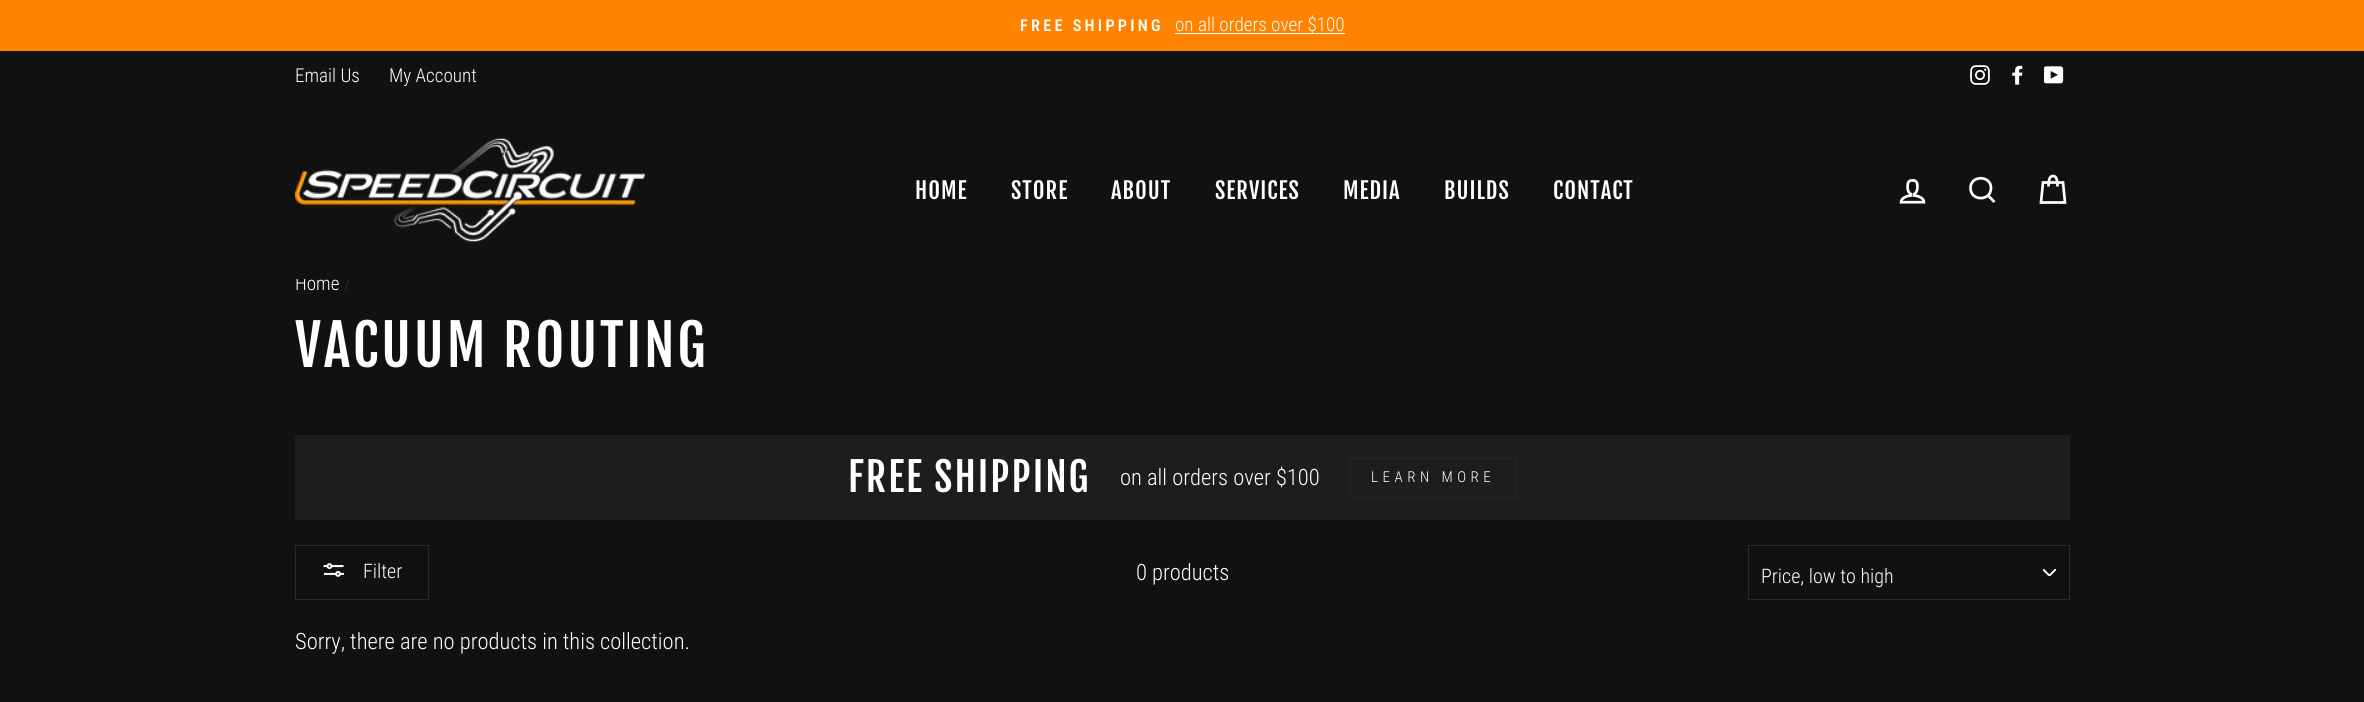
import math
import cairo


def use_color(cr, r, g, b):
  cr.set_source_rgb(r / 255, g / 255, b / 255)

def text(cr, x, y, s, family, size, color, bold=False, italic=False):
  cr.select_font_face(family, cairo.FONT_SLANT_ITALIC if italic else cairo.FONT_SLANT_NORMAL, cairo.FONT_WEIGHT_BOLD if bold else cairo.FONT_WEIGHT_NORMAL)
  cr.set_font_size(size)
  use_color(cr, *color)
  cr.move_to(x, y)
  cr.show_text(s)

def spaced_text(cr, x, y, s, letter, word):
  cr.move_to(x, y)
  for ch in s:
    cr.show_text(ch)
    cr.rel_move_to(letter + word * (ch == ' '), 0)

def box(cr, x, y, w, h, *color):
  use_color(cr, *color)
  cr.rectangle(x, y, w, h)
  cr.fill()

def round_rect(cr, x, y, w, h, r):
  cr.new_sub_path()
  for i, (u, v) in enumerate([(x + w - r, y + h - r), (x + r, y + h - r), (x + r, y + r), (x + w - r, y + r)]):
    cr.arc(u, v, r, i * math.pi / 2, (i + 1) * math.pi / 2)
  cr.close_path()

def shadow(cr, x, y, w, h, r, blur, alpha):
  cr.push_group_with_content(cairo.CONTENT_ALPHA)
  cr.set_operator(cairo.OPERATOR_SOURCE)
  for i in range(15, -16, -2):
    e = blur * i / 6
    if min(w, h) + 2 * e > 0:
      cr.set_source_rgba(0, 0, 0, alpha * math.erfc((i - 1) / 8.5) / 2)
      round_rect(cr, x - e, y - e, w + 2 * e, h + 2 * e, max(0, min(r + e + blur * .6, min(w, h) / 2 + e)))
      cr.fill()
  cr.mask(cr.pop_group())

def picture(cr, path, x, y, w, h):
  cr.save()
  cr.set_source_surface(cairo.ImageSurface.create_from_png(path), x, y)
  cr.rectangle(x, y, w, h)
  cr.fill()
  cr.restore()

def draw(cr):
  use_color(cr, 17, 17, 17)
  cr.paint()
  box(cr, 0, 0, 2364, 51, 255, 130, 0)
  box(cr, 1175, 33, 170, 1, 255, 255, 255)
  picture(cr, "img_01.png", 1970, 65, 20, 20)
  picture(cr, "img_02.png", 2012, 65, 11, 20)
  picture(cr, "img_03.png", 2044, 66, 20, 18)
  use_color(cr, 0, 0, 0)
  shadow(cr, 0, 101, 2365, 178, 0, 0.5, 0.2)
  box(cr, 295, 435, 1775, 85, 30, 29, 29)
  cr.rectangle(1350.5, 458.5, 165, 39)
  use_color(cr, 40, 39, 38)
  cr.set_line_width(1)
  cr.stroke()
  cr.rectangle(295.5, 545.5, 133, 54)
  use_color(cr, 43, 42, 39)
  cr.stroke()
  picture(cr, "img_06.png", 323, 563, 21, 14)
  picture(cr, "img_07.png", 2043, 569, 13, 7)
  cr.rectangle(1748.5, 545.5, 321, 54)
  cr.stroke()
  cr.select_font_face("Roboto Condensed SemiBold")
  cr.set_font_size(16.25)
  use_color(cr, 255, 255, 255)
  spaced_text(cr, 1020, 31, "FREE SHIPPING", 3.25, 0)
  text(cr, 1175, 31, "on all orders over $100", "Roboto Condensed Light", 19.1, (255, 255, 255))
  text(cr, 295, 82, "Email Us", "Roboto Condensed Light", 19.1, (255, 255, 255))
  text(cr, 389, 82, "My Account", "Roboto Condensed Light", 19.1, (255, 255, 255))
  text(cr, 295, 290, "Home", "Roboto Condensed Light", 19.1, (255, 255, 255))
  text(cr, 344, 290, "/", "Roboto Condensed Light", 19.1, (43, 42, 39))
  box(cr, 0, 101, 2364, 178, 17, 17, 17)
  cr.select_font_face("Fjalla One")
  cr.set_font_size(22.5)
  use_color(cr, 255, 255, 255)
  spaced_text(cr, 1343, 199, "MEDIA", 1, 0)
  spaced_text(cr, 1215, 199, "SERVICES", 1, 0)
  spaced_text(cr, 1011, 199, "STORE", 1, 0)
  picture(cr, "img_04.png", 295, 138, 350, 104)
  cr.new_path()
  cr.move_to(2048.5, 186.5)
  cr.curve_to(2048.5, 178, 2050.5, 176, 2053, 176)
  cr.curve_to(2055.5, 176, 2057.5, 178, 2057.5, 186.5)
  cr.move_to(2043, 182.5)
  cr.line_to(2063, 182.5)
  cr.line_to(2065, 202.5)
  cr.line_to(2041, 202.5)
  cr.close_path()
  cr.set_line_width(2.7)
  cr.stroke()
  picture(cr, "img_05.png", 1899, 179, 27, 25)
  spaced_text(cr, 1553, 199, "CONTACT", 1, 0)
  spaced_text(cr, 1444, 199, "BUILDS", 1, 0)
  spaced_text(cr, 1111, 199, "ABOUT", 1, 0)
  spaced_text(cr, 915, 199, "HOME", 1, 0)
  cr.new_path()
  cr.move_to(1991, 188)
  cr.curve_to(1991, 201.5, 1970.5, 201.5, 1970.5, 188)
  cr.curve_to(1970.5, 175, 1991, 175, 1991, 188)
  cr.close_path()
  cr.move_to(1994.5, 202)
  cr.line_to(1988, 195.5)
  cr.stroke()
  cr.set_font_size(56.25)
  spaced_text(cr, 295, 367, "VACUUM ROUTING", 2.75, 0)
  cr.set_font_size(39.5)
  spaced_text(cr, 848, 492, "FREE SHIPPING", 2, 0)
  text(cr, 1120, 485, "on all orders over $100", "Roboto Condensed Light", 22.5, (255, 255, 255))
  cr.set_font_size(15)
  spaced_text(cr, 1371, 482, "LEARN MORE", 4.5, 0)
  text(cr, 363, 578, "Filter", "Roboto Condensed Light", 20, (255, 255, 255))
  text(cr, 1136, 580, "0 products", "Roboto Condensed Light", 22.5, (255, 255, 255))
  text(cr, 1761, 583, "Price, low to high", "Roboto Condensed Light", 20, (255, 255, 255))
  text(cr, 295, 649, "Sorry, there are no products in this collection.", "Roboto Condensed Light", 22.5, (255, 255, 255))


surface = cairo.ImageSurface(cairo.FORMAT_RGB24, 2364, 702)
cr = cairo.Context(surface)
options = cairo.FontOptions()
options.set_hint_metrics(cairo.HINT_METRICS_OFF)
options.set_hint_style(cairo.HINT_STYLE_NONE)
cr.set_font_options(options)
cr.set_miter_limit(4)
draw(cr)
surface.write_to_png("out.png")
